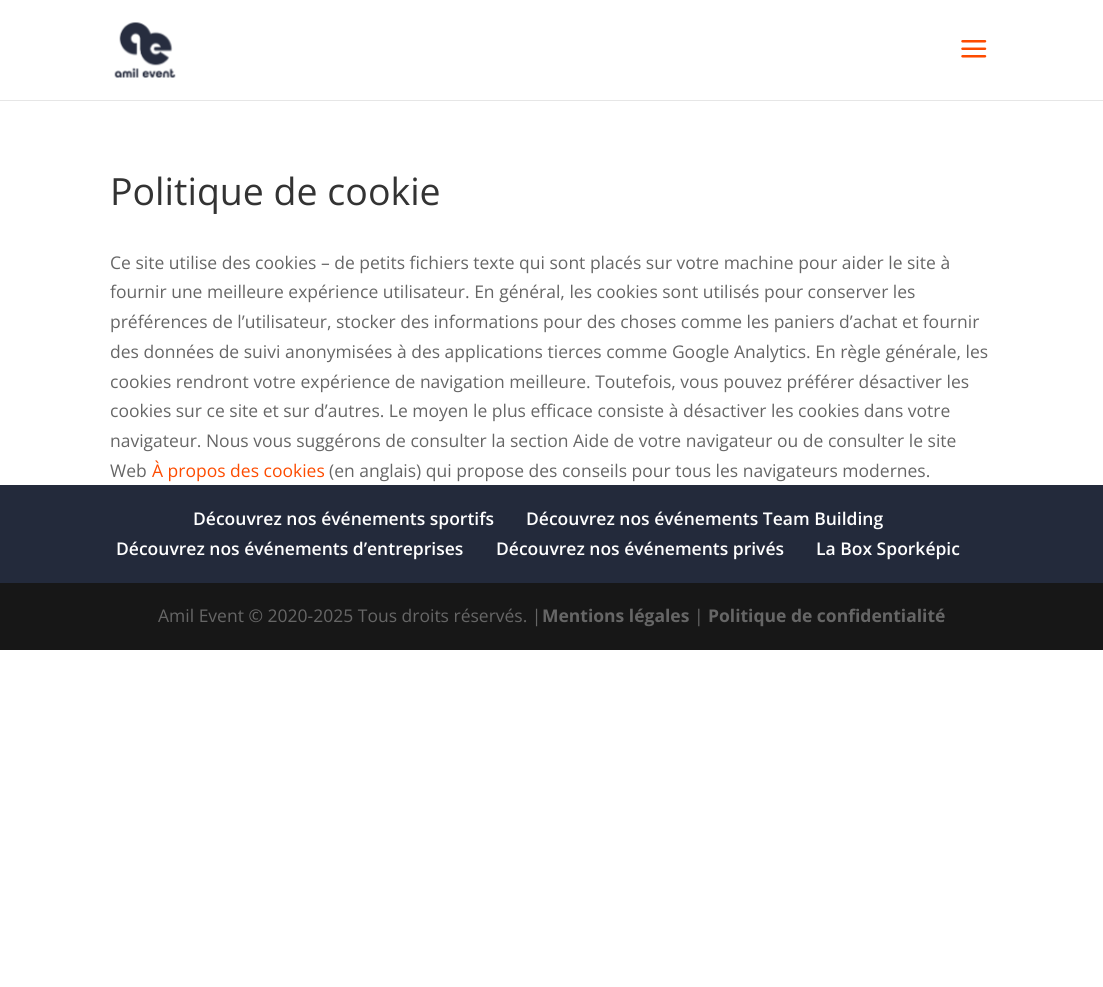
import math
import cairo


def use_color(cr, r, g, b):
  cr.set_source_rgb(r / 255, g / 255, b / 255)

def text(cr, x, y, s, family, size, color, bold=False, italic=False):
  cr.select_font_face(family, cairo.FONT_SLANT_ITALIC if italic else cairo.FONT_SLANT_NORMAL, cairo.FONT_WEIGHT_BOLD if bold else cairo.FONT_WEIGHT_NORMAL)
  cr.set_font_size(size)
  use_color(cr, *color)
  cr.move_to(x, y)
  cr.show_text(s)

def box(cr, x, y, w, h, *color):
  use_color(cr, *color)
  cr.rectangle(x, y, w, h)
  cr.fill()

def picture(cr, path, x, y, w, h):
  cr.save()
  cr.set_source_surface(cairo.ImageSurface.create_from_png(path), x, y)
  cr.rectangle(x, y, w, h)
  cr.fill()
  cr.restore()

def draw(cr):
  use_color(cr, 255, 255, 255)
  cr.paint()
  use_color(cr, 230, 230, 230)
  cr.new_path()
  cr.move_to(0, 100)
  cr.line_to(0, 101)
  cr.line_to(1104, 101)
  cr.line_to(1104, 1)
  cr.line_to(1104, 100)
  cr.close_path()
  cr.fill()
  picture(cr, "img_01.png", 114, 22, 62, 56)
  picture(cr, "img_02.png", 961, 40, 26, 18)
  box(cr, 0, 485, 1103, 98, 35, 42, 59)
  box(cr, 0, 583, 1103, 67, 23, 23, 23)
  text(cr, 110, 205, "Politique de cookie", "Open Sans", 37.5, (51, 51, 51))
  text(cr, 110, 269, "Ce site utilise des cookies – de petits fichiers texte qui sont placés sur votre machine pour aider le site à", "Open Sans", 17.5, (102, 102, 102))
  text(cr, 110, 298, "fournir une meilleure expérience utilisateur. En général, les cookies sont utilisés pour conserver les", "Open Sans", 17.5, (102, 102, 102))
  text(cr, 110, 328, "préférences de l’utilisateur, stocker des informations pour des choses comme les paniers d’achat et fournir", "Open Sans", 17.5, (102, 102, 102))
  text(cr, 110, 358, "des données de suivi anonymisées à des applications tierces comme Google Analytics. En règle générale, les", "Open Sans", 17.5, (102, 102, 102))
  text(cr, 110, 388, "cookies rendront votre expérience de navigation meilleure. Toutefois, vous pouvez préférer désactiver les", "Open Sans", 17.5, (102, 102, 102))
  text(cr, 110, 417, "cookies sur ce site et sur d’autres. Le moyen le plus efficace consiste à désactiver les cookies dans votre", "Open Sans", 17.5, (102, 102, 102))
  text(cr, 110, 447, "navigateur. Nous vous suggérons de consulter la section Aide de votre navigateur ou de consulter le site", "Open Sans", 17.5, (102, 102, 102))
  text(cr, 110, 477, "Web", "Open Sans", 17.5, (102, 102, 102))
  text(cr, 152, 477, "À propos des cookies", "Open Sans", 17.5, (253, 75, 0))
  text(cr, 329, 477, "(en anglais) qui propose des conseils pour tous les navigateurs modernes.", "Open Sans", 17.5, (102, 102, 102))
  text(cr, 193, 525, "Découvrez nos événements sportifs", "Open Sans SemiBold", 17.5, (255, 255, 255))
  text(cr, 526, 525, "Découvrez nos événements Team Building", "Open Sans SemiBold", 17.5, (255, 255, 255))
  text(cr, 116, 555, "Découvrez nos événements d’entreprises", "Open Sans SemiBold", 17.5, (255, 255, 255))
  text(cr, 496, 555, "Découvrez nos événements privés", "Open Sans SemiBold", 17.5, (255, 255, 255))
  text(cr, 816, 555, "La Box Sporképic", "Open Sans SemiBold", 17.5, (255, 255, 255))
  text(cr, 158, 622, "Amil Event © 2020-2025 Tous droits réservés. |", "Open Sans", 17.5, (102, 102, 102))
  text(cr, 542, 622, "Mentions légales", "Open Sans", 17.5, (102, 102, 102), bold=True)
  text(cr, 694, 622, "|", "Open Sans", 17.5, (102, 102, 102))
  text(cr, 708, 622, "Politique de confidentialité", "Open Sans", 17.5, (102, 102, 102), bold=True)


surface = cairo.ImageSurface(cairo.FORMAT_RGB24, 1103, 987)
cr = cairo.Context(surface)
options = cairo.FontOptions()
options.set_hint_metrics(cairo.HINT_METRICS_OFF)
options.set_hint_style(cairo.HINT_STYLE_NONE)
cr.set_font_options(options)
cr.set_miter_limit(4)
draw(cr)
surface.write_to_png("out.png")
